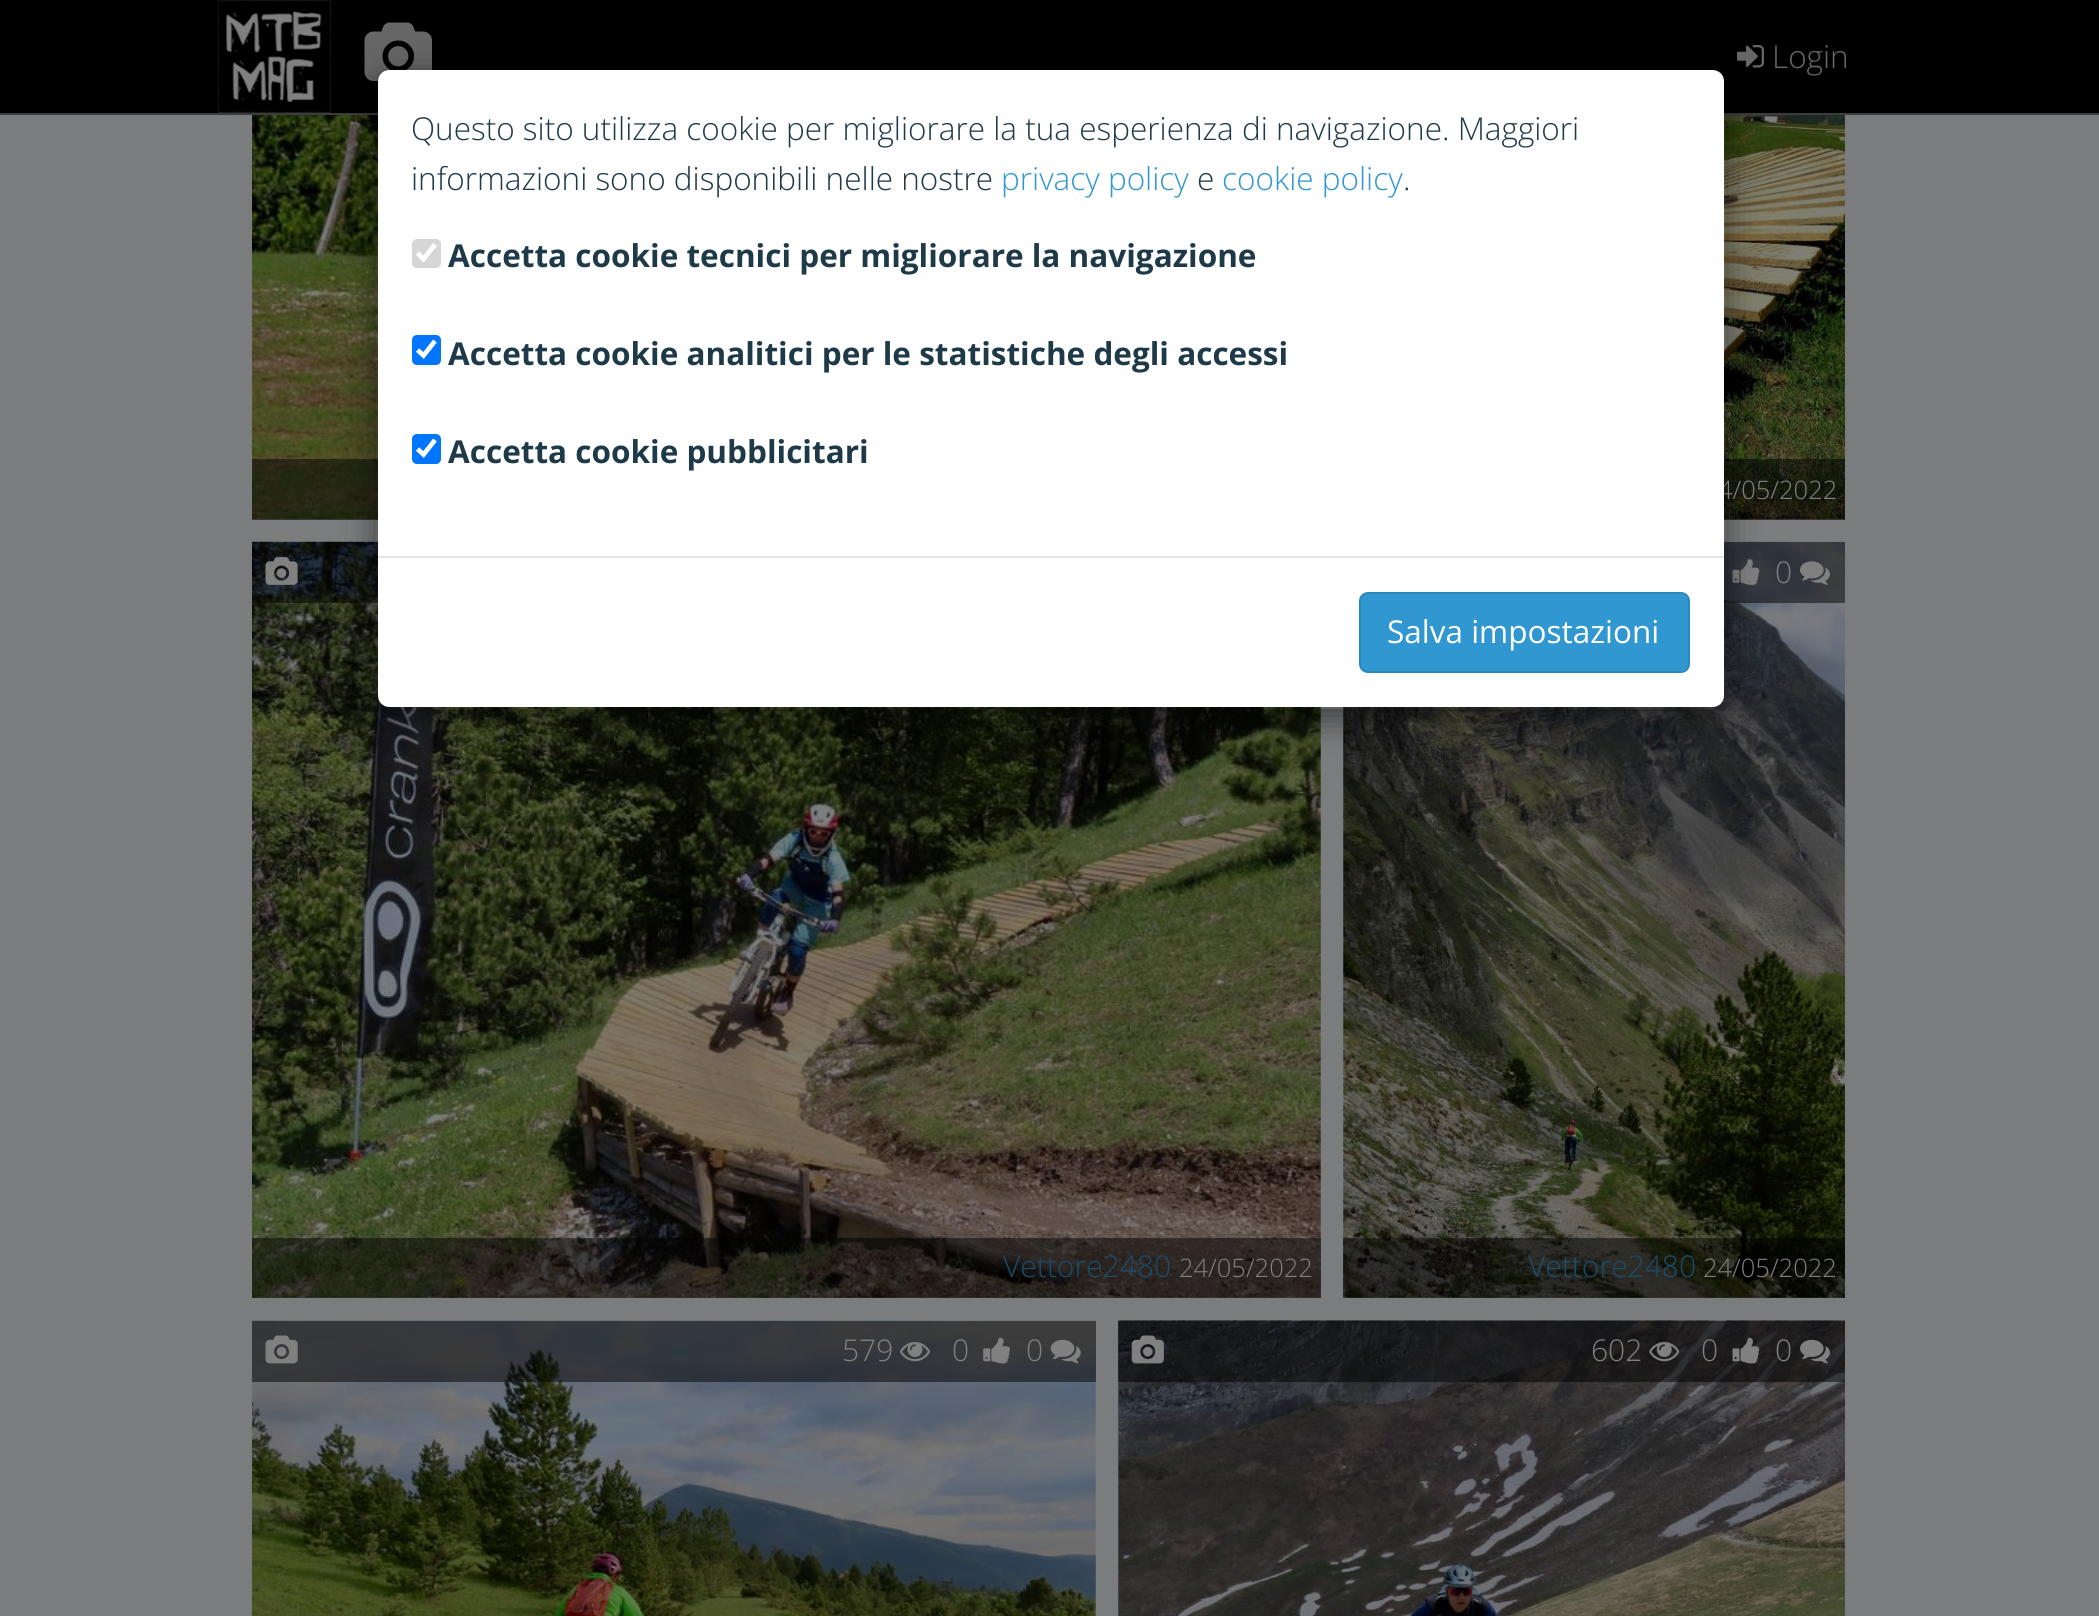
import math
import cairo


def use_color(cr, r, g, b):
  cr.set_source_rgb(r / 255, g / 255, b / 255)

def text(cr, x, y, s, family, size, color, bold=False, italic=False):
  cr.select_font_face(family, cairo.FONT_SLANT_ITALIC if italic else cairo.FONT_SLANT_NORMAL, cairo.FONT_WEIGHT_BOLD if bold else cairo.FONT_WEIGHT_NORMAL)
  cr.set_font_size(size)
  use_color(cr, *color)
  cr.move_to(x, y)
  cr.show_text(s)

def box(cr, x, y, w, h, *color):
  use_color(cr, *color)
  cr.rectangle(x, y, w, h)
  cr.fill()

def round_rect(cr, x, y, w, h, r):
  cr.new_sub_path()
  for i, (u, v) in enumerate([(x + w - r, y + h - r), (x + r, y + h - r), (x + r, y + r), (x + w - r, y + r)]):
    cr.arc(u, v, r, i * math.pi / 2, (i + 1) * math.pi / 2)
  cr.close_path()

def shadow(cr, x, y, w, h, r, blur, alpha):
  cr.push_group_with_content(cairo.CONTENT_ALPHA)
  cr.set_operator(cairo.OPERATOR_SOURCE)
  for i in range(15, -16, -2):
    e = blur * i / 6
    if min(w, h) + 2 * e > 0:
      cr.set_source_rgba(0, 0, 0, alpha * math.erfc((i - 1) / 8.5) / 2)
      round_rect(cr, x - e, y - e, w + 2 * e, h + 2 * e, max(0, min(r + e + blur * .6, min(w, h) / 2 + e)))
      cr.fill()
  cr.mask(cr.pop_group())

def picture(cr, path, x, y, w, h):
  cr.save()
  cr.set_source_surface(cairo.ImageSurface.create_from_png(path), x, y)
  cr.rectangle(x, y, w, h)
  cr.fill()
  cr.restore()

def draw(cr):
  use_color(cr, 123, 124, 125)
  cr.paint()
  box(cr, 0, 0, 2099, 113, 0, 0, 0)
  box(cr, 0, 113, 2099, 2, 60, 60, 60)
  picture(cr, "img_01.png", 218, 0, 113, 113)
  picture(cr, "img_02.png", 364, 22, 68, 59)
  picture(cr, "img_03.png", 1737, 45, 27, 23)
  picture(cr, "img_04.png", 252, 115, 126, 405)
  cr.set_source_rgba(0, 0, 0, 0.5)
  cr.rectangle(252, 459, 126, 61)
  cr.fill()
  picture(cr, "img_05.png", 1724, 115, 121, 405)
  cr.rectangle(1724, 459, 121, 61)
  cr.fill()
  picture(cr, "img_06.png", 252, 541, 1069, 757)
  cr.rectangle(252, 542, 126, 61)
  cr.fill()
  picture(cr, "img_08.png", 1343, 541, 502, 757)
  cr.rectangle(1724, 542, 121, 61)
  cr.fill()
  picture(cr, "img_09.png", 1732, 559, 28, 26)
  cr.save()
  cr.set_fill_rule(cairo.FILL_RULE_EVEN_ODD)
  cr.new_path()
  cr.move_to(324, 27)
  cr.line_to(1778, 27)
  cr.line_to(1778, 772)
  cr.line_to(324, 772)
  cr.close_path()
  cr.move_to(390, 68)
  cr.line_to(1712, 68)
  cr.curve_to(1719.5, 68, 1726, 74.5, 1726, 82)
  cr.line_to(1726, 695)
  cr.curve_to(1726, 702.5, 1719.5, 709, 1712, 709)
  cr.line_to(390, 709)
  cr.curve_to(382.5, 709, 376, 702.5, 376, 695)
  cr.line_to(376, 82)
  cr.curve_to(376, 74.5, 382.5, 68, 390, 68)
  cr.close_path()
  cr.clip()
  use_color(cr, 0, 0, 0)
  shadow(cr, 376, 79, 1350, 641, 14, 17, 0.5)
  cr.restore()
  picture(cr, "img_07.png", 265, 557, 33, 28)
  cr.rectangle(252, 1238, 1069, 60)
  cr.fill()
  picture(cr, "img_10.png", 1800, 561, 30, 24)
  cr.rectangle(1343, 1238, 502, 60)
  cr.fill()
  picture(cr, "img_11.png", 252, 1320, 844, 296)
  cr.rectangle(252, 1321, 844, 61)
  cr.fill()
  picture(cr, "img_12.png", 265, 1335, 33, 29)
  picture(cr, "img_13.png", 900, 1342, 30, 20)
  picture(cr, "img_14.png", 983, 1337, 27, 27)
  picture(cr, "img_15.png", 1050, 1339, 31, 25)
  picture(cr, "img_16.png", 1118, 1320, 727, 296)
  cr.rectangle(1118, 1321, 727, 61)
  cr.fill()
  picture(cr, "img_17.png", 1131, 1335, 33, 29)
  picture(cr, "img_18.png", 1649, 1342, 31, 20)
  picture(cr, "img_19.png", 1732, 1337, 28, 27)
  picture(cr, "img_20.png", 1800, 1339, 30, 25)
  text(cr, 1772, 68, "Login", "Open Sans Light", 31.5, (102, 102, 102))
  text(cr, 1718, 499, "4/05/2022", "Open Sans Light", 25.5, (128, 128, 128))
  use_color(cr, 255, 255, 255)
  round_rect(cr, 378, 70, 1346, 637, 11)
  cr.fill()
  round_rect(cr, 377, 69, 1348, 639, 13)
  cr.set_source_rgba(0, 0, 0, 0.2)
  cr.stroke()
  text(cr, 448, 463, "Accetta cookie pubblicitari", "Open Sans", 31.5, (30, 57, 72), bold=True)
  use_color(cr, 0, 117, 255)
  round_rect(cr, 412, 434, 29, 30, 5)
  cr.fill()
  cr.new_path()
  cr.move_to(417.5, 449)
  cr.line_to(423.5, 454.5)
  cr.line_to(435, 440)
  use_color(cr, 255, 255, 255)
  cr.set_line_width(4.7)
  cr.stroke()
  text(cr, 448, 365, "Accetta cookie analitici per le statistiche degli accessi", "Open Sans", 31.5, (30, 57, 72), bold=True)
  use_color(cr, 0, 117, 255)
  round_rect(cr, 412, 335, 29, 30, 5)
  cr.fill()
  cr.new_path()
  cr.move_to(417.5, 350)
  cr.line_to(423.5, 355.5)
  cr.line_to(435, 341)
  use_color(cr, 255, 255, 255)
  cr.stroke()
  text(cr, 448, 267, "Accetta cookie tecnici per migliorare la navigazione", "Open Sans", 31.5, (30, 57, 72), bold=True)
  use_color(cr, 214, 214, 214)
  round_rect(cr, 412, 239, 29, 29, 5)
  cr.fill()
  cr.new_path()
  cr.move_to(417.5, 253)
  cr.line_to(423.5, 259)
  cr.line_to(435, 244.5)
  use_color(cr, 255, 255, 255)
  cr.stroke()
  text(cr, 1403, 190, ".", "Open Sans Light", 31.5, (30, 57, 72))
  text(cr, 1222, 190, "cookie policy", "Open Sans Light", 31.5, (48, 151, 209))
  text(cr, 1197, 190, "e", "Open Sans Light", 31.5, (30, 57, 72))
  text(cr, 1001, 190, "privacy policy", "Open Sans Light", 31.5, (48, 151, 209))
  text(cr, 411, 190, "informazioni sono disponibili nelle nostre", "Open Sans Light", 31.5, (30, 57, 72))
  text(cr, 411, 140, "Questo sito utilizza cookie per migliorare la tua esperienza di navigazione. Maggiori", "Open Sans Light", 31.5, (30, 57, 72))
  use_color(cr, 48, 151, 209)
  round_rect(cr, 1360, 593, 329, 79, 8)
  cr.fill_preserve()
  use_color(cr, 42, 136, 189)
  cr.set_line_width(2)
  cr.stroke()
  text(cr, 1387, 643, "Salva impostazioni", "Open Sans", 31.5, (255, 255, 255))
  box(cr, 378, 556, 1346, 2, 229, 229, 229)
  text(cr, 1003, 1277, "Vettore2480", "Open Sans Light", 30, (24, 76, 105))
  text(cr, 1179, 1277, "24/05/2022", "Open Sans Light", 25.5, (128, 128, 128))
  text(cr, 1775, 583, "0", "Open Sans Light", 30, (128, 128, 128))
  text(cr, 1528, 1277, "Vettore2480", "Open Sans Light", 30, (24, 76, 105))
  text(cr, 1703, 1277, "24/05/2022", "Open Sans Light", 25.5, (128, 128, 128))
  text(cr, 842, 1361, "579", "Open Sans Light", 30, (128, 128, 128))
  text(cr, 952, 1361, "0", "Open Sans Light", 30, (128, 128, 128))
  text(cr, 1026, 1361, "0", "Open Sans Light", 30, (128, 128, 128))
  text(cr, 1591, 1361, "602", "Open Sans Light", 30, (128, 128, 128))
  text(cr, 1701, 1361, "0", "Open Sans Light", 30, (128, 128, 128))
  text(cr, 1775, 1361, "0", "Open Sans Light", 30, (128, 128, 128))


surface = cairo.ImageSurface(cairo.FORMAT_RGB24, 2099, 1616)
cr = cairo.Context(surface)
options = cairo.FontOptions()
options.set_hint_metrics(cairo.HINT_METRICS_OFF)
options.set_hint_style(cairo.HINT_STYLE_NONE)
cr.set_font_options(options)
cr.set_miter_limit(4)
draw(cr)
surface.write_to_png("out.png")
